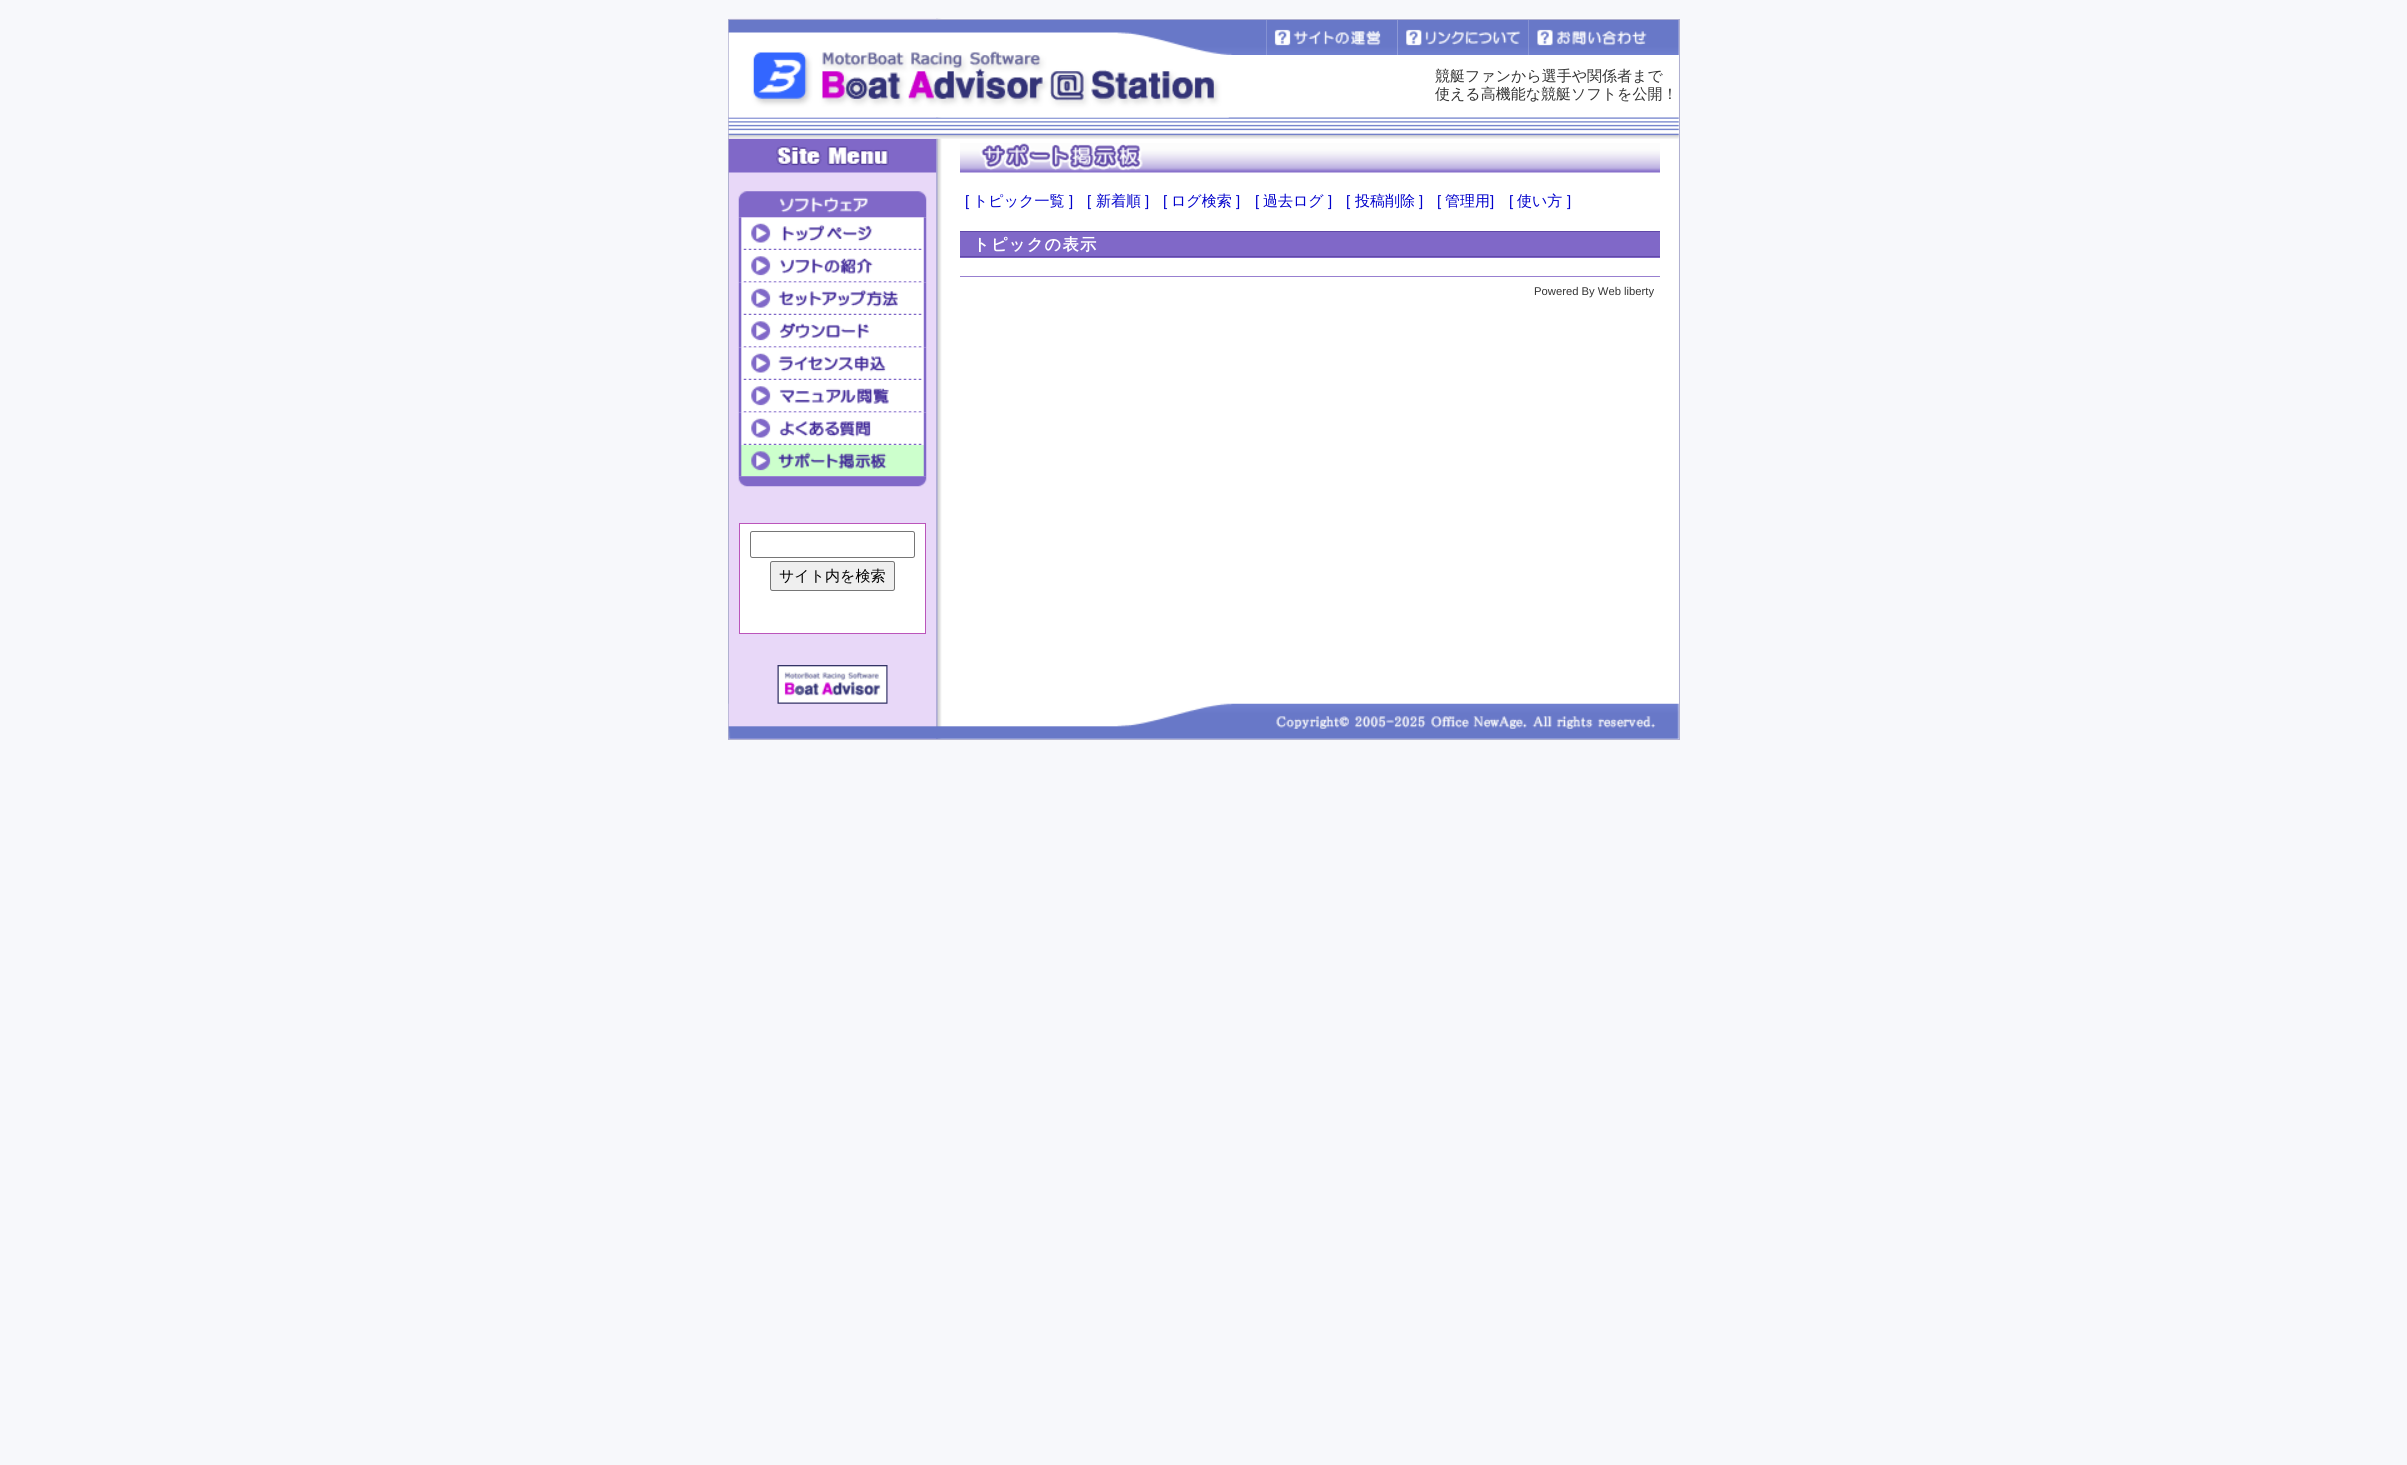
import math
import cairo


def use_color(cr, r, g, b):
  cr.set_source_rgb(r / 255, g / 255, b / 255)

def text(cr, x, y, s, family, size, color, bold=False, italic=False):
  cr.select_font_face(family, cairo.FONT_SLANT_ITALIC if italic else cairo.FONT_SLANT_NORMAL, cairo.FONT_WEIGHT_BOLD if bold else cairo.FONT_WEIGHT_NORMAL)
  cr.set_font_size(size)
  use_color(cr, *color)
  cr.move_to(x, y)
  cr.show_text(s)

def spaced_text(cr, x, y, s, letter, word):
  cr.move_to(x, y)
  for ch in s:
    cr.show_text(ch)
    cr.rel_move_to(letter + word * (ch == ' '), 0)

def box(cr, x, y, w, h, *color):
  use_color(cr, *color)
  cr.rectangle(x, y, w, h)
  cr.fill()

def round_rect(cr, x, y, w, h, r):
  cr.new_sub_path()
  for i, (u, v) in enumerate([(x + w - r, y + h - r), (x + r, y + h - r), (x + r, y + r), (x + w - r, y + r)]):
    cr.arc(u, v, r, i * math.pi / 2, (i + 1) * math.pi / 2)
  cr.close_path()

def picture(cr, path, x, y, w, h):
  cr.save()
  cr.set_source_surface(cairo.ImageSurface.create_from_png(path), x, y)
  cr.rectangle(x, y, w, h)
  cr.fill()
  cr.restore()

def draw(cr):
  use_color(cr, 247, 248, 251)
  cr.paint()
  picture(cr, "img_01.png", 728, 18, 951, 721)
  cr.rectangle(728.5, 19.5, 951, 720)
  use_color(cr, 176, 176, 208)
  cr.set_line_width(1)
  cr.stroke()
  picture(cr, "img_02.png", 728, 20, 539, 35)
  picture(cr, "img_05.png", 1528, 20, 132, 35)
  picture(cr, "img_04.png", 1397, 20, 132, 35)
  picture(cr, "img_03.png", 1266, 20, 132, 35)
  picture(cr, "img_06.png", 1660, 20, 19, 35)
  picture(cr, "img_10.png", 728, 138, 209, 35)
  picture(cr, "img_07.png", 728, 117, 951, 22)
  picture(cr, "img_08.png", 728, 55, 501, 63)
  picture(cr, "img_09.png", 960, 143, 700, 30)
  box(cr, 960, 232, 700, 26, 128, 104, 200)
  box(cr, 960, 231, 700, 1, 96, 72, 168)
  box(cr, 960, 256, 700, 1, 96, 72, 168)
  box(cr, 960, 276, 700, 1, 152, 128, 208)
  picture(cr, "img_11.png", 738, 191, 189, 27)
  picture(cr, "img_12.png", 738, 217, 189, 33)
  picture(cr, "img_13.png", 738, 250, 189, 33)
  picture(cr, "img_14.png", 738, 282, 189, 33)
  picture(cr, "img_15.png", 738, 315, 189, 33)
  picture(cr, "img_16.png", 738, 347, 189, 33)
  picture(cr, "img_17.png", 738, 380, 189, 33)
  picture(cr, "img_18.png", 738, 412, 189, 33)
  picture(cr, "img_19.png", 738, 445, 189, 32)
  picture(cr, "img_20.png", 738, 476, 189, 11)
  use_color(cr, 255, 255, 255)
  cr.rectangle(739.5, 523.5, 186, 110)
  cr.fill_preserve()
  use_color(cr, 187, 85, 187)
  cr.stroke()
  round_rect(cr, 750.5, 531.5, 164, 26, 2)
  use_color(cr, 118, 118, 118)
  cr.stroke()
  use_color(cr, 239, 239, 239)
  round_rect(cr, 770.5, 561.5, 124, 29, 2)
  cr.fill_preserve()
  use_color(cr, 118, 118, 118)
  cr.stroke()
  picture(cr, "img_22.png", 728, 703, 951, 36)
  picture(cr, "img_21.png", 777, 665, 111, 39)
  text(cr, 1435, 81, "競艇ファンから選手や関係者まで", "WenQuanYi Zen Hei Medium", 15, (51, 51, 51))
  text(cr, 1435, 99, "使える高機能な競艇ソフトを公開！", "WenQuanYi Zen Hei Medium", 15, (51, 51, 51))
  text(cr, 965, 206, "[", "Liberation Sans", 15, (0, 0, 204))
  text(cr, 973, 206, "トピック一覧", "WenQuanYi Zen Hei Medium", 15, (0, 0, 204))
  text(cr, 1069, 206, "]", "Liberation Sans", 15, (0, 0, 204))
  text(cr, 1087, 206, "[", "Liberation Sans", 15, (0, 0, 204))
  text(cr, 1096, 206, "新着順", "WenQuanYi Zen Hei Medium", 15, (0, 0, 204))
  text(cr, 1145, 206, "]", "Liberation Sans", 15, (0, 0, 204))
  text(cr, 1163, 206, "[", "Liberation Sans", 15, (0, 0, 204))
  text(cr, 1171, 206, "ログ検索", "WenQuanYi Zen Hei Medium", 15, (0, 0, 204))
  text(cr, 1236, 206, "]", "Liberation Sans", 15, (0, 0, 204))
  text(cr, 1255, 206, "[", "Liberation Sans", 15, (0, 0, 204))
  text(cr, 1263, 206, "過去ログ", "WenQuanYi Zen Hei Medium", 15, (0, 0, 204))
  text(cr, 1328, 206, "]", "Liberation Sans", 15, (0, 0, 204))
  text(cr, 1346, 206, "[", "Liberation Sans", 15, (0, 0, 204))
  text(cr, 1355, 206, "投稿削除", "WenQuanYi Zen Hei Medium", 15, (0, 0, 204))
  text(cr, 1419, 206, "]", "Liberation Sans", 15, (0, 0, 204))
  text(cr, 1437, 206, "[", "Liberation Sans", 15, (0, 0, 204))
  text(cr, 1445, 206, "管理用", "WenQuanYi Zen Hei Medium", 15, (0, 0, 204))
  text(cr, 1490, 206, "]", "Liberation Sans", 15, (0, 0, 204))
  text(cr, 1509, 206, "[", "Liberation Sans", 15, (0, 0, 204))
  text(cr, 1517, 206, "使い方", "WenQuanYi Zen Hei Medium", 15, (0, 0, 204))
  text(cr, 1567, 206, "]", "Liberation Sans", 15, (0, 0, 204))
  cr.select_font_face("WenQuanYi Zen Hei", cairo.FONT_SLANT_NORMAL, cairo.FONT_WEIGHT_BOLD)
  cr.set_font_size(16.25)
  use_color(cr, 255, 255, 255)
  spaced_text(cr, 973, 250, "トピックの表示", 1.25, 0)
  text(cr, 1534, 295, "Powered By Web liberty", "Liberation Sans", 11.25, (51, 51, 51))
  text(cr, 779, 581, "サイト内を検索", "WenQuanYi Zen Hei Medium", 15, (0, 0, 0))


surface = cairo.ImageSurface(cairo.FORMAT_RGB24, 2407, 1465)
cr = cairo.Context(surface)
options = cairo.FontOptions()
options.set_hint_metrics(cairo.HINT_METRICS_OFF)
options.set_hint_style(cairo.HINT_STYLE_NONE)
cr.set_font_options(options)
cr.set_miter_limit(4)
draw(cr)
surface.write_to_png("out.png")
